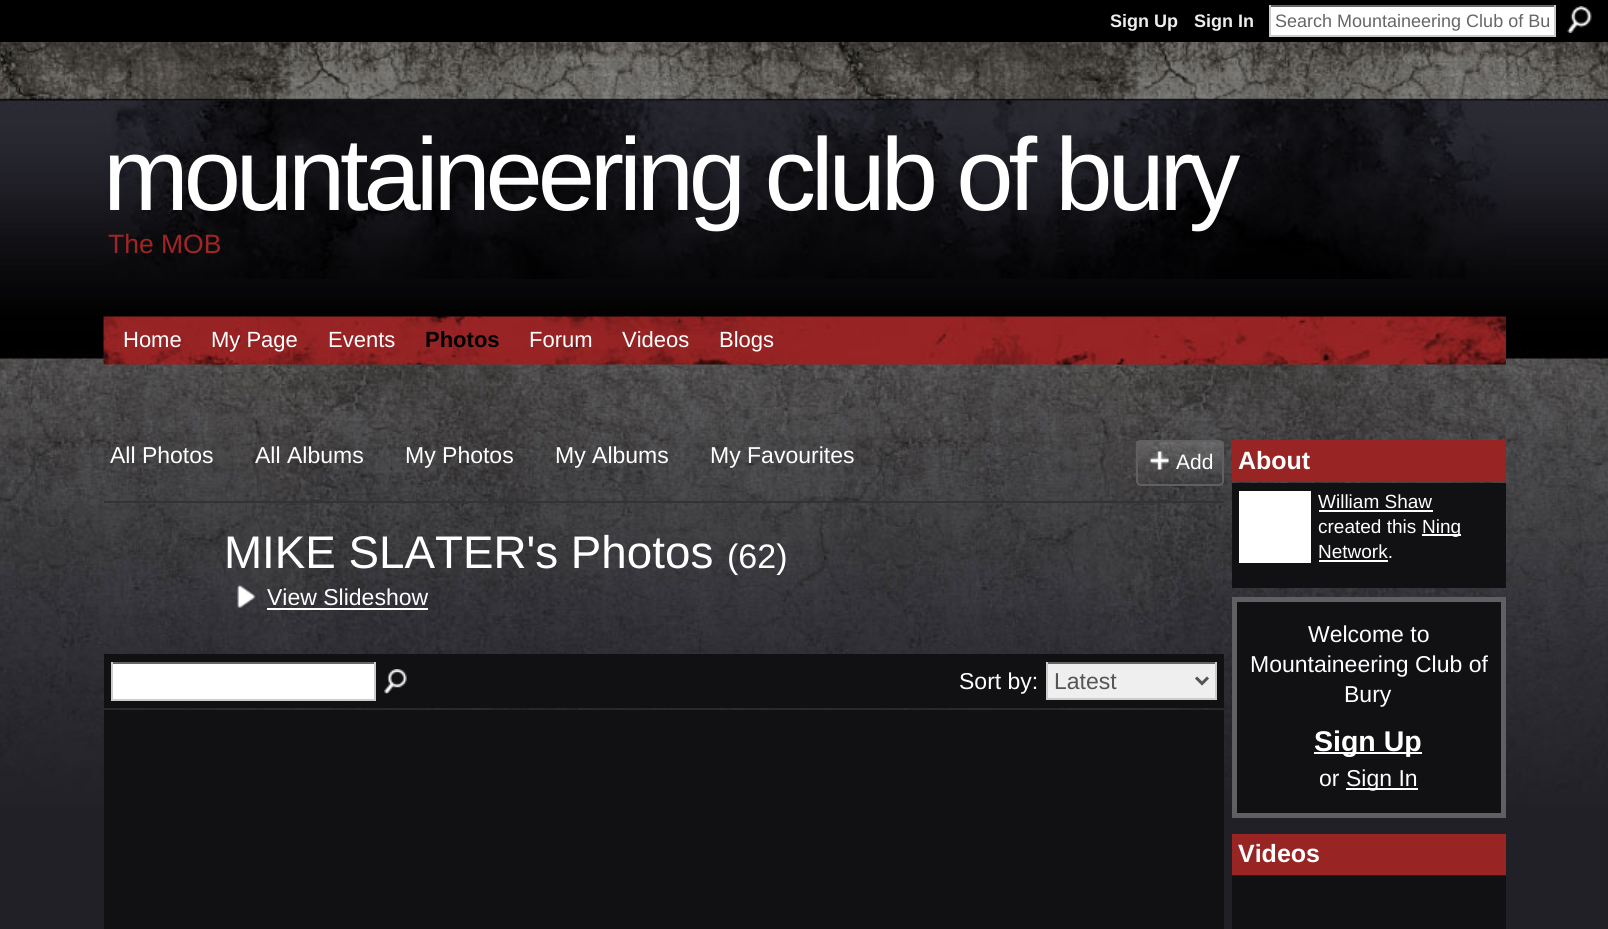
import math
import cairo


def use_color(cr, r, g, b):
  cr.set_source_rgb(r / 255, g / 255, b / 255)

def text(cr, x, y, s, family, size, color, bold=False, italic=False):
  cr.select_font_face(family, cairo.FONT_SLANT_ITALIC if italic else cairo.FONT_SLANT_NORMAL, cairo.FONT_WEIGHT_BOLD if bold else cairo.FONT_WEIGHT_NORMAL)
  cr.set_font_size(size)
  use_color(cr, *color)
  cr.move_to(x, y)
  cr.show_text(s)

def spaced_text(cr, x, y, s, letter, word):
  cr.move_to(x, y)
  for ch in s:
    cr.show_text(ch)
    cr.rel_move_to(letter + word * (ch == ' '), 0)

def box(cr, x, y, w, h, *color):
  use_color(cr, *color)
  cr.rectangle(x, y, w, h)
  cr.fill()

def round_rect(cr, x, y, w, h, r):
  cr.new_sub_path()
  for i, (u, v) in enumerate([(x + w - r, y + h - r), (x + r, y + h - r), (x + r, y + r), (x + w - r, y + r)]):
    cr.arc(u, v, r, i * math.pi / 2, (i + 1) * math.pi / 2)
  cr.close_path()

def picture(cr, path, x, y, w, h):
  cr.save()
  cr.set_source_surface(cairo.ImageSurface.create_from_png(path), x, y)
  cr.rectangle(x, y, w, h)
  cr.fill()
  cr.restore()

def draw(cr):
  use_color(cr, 32, 32, 38)
  cr.paint()
  picture(cr, "img_01.png", 0, 42, 1608, 762)
  box(cr, 0, 0, 1608, 42, 0, 0, 0)
  box(cr, 1271, 7, 283, 28, 255, 255, 255)
  box(cr, 1269, 5, 287, 2, 102, 102, 102)
  box(cr, 1554, 5, 2, 31, 204, 204, 204)
  box(cr, 1269, 35, 287, 2, 204, 204, 204)
  box(cr, 1269, 5, 2, 31, 204, 204, 204)
  picture(cr, "img_02.png", 1567, 6, 25, 27)
  picture(cr, "img_03.png", 103, 100, 1403, 179)
  picture(cr, "img_04.png", 103, 316, 1403, 49)
  box(cr, 104, 501, 1120, 2, 51, 51, 51)
  picture(cr, "img_05.png", 1135, 441, 89, 44)
  round_rect(cr, 1137, 441, 86, 44, 4)
  use_color(cr, 96, 96, 98)
  cr.stroke()
  picture(cr, "img_06.png", 1150, 451, 19, 19)
  picture(cr, "img_07.png", 237, 585, 19, 23)
  box(cr, 267, 608, 161, 2, 255, 255, 255)
  box(cr, 104, 654, 1120, 54, 17, 17, 19)
  box(cr, 113, 664, 261, 35, 255, 255, 255)
  box(cr, 111, 662, 264, 2, 102, 102, 102)
  box(cr, 374, 662, 2, 39, 204, 204, 204)
  box(cr, 111, 699, 264, 2, 204, 204, 204)
  box(cr, 111, 662, 2, 39, 204, 204, 204)
  picture(cr, "img_08.png", 384, 669, 23, 25)
  box(cr, 1048, 664, 167, 34, 239, 239, 239)
  box(cr, 1046, 662, 171, 2, 102, 102, 102)
  box(cr, 1215, 662, 2, 37, 204, 204, 204)
  box(cr, 1046, 698, 171, 2, 204, 204, 204)
  box(cr, 1046, 662, 2, 37, 204, 204, 204)
  cr.new_path()
  cr.move_to(1196, 677.5)
  cr.line_to(1202, 683.5)
  cr.line_to(1208, 677.5)
  use_color(cr, 85, 85, 85)
  cr.set_line_width(3)
  cr.stroke()
  box(cr, 104, 710, 1120, 219, 17, 17, 19)
  box(cr, 1232, 440, 274, 42, 152, 36, 36)
  box(cr, 1232, 483, 274, 105, 17, 17, 19)
  box(cr, 1239, 491, 72, 72, 255, 255, 255)
  box(cr, 1319, 510, 114, 2, 255, 255, 255)
  box(cr, 1422, 534, 39, 2, 255, 255, 255)
  box(cr, 1319, 560, 69, 2, 255, 255, 255)
  use_color(cr, 17, 17, 19)
  cr.rectangle(1234.5, 599.5, 269, 216)
  cr.fill_preserve()
  use_color(cr, 96, 96, 98)
  cr.set_line_width(5)
  cr.stroke()
  box(cr, 1314, 752, 108, 2, 255, 255, 255)
  box(cr, 1346, 788, 72, 2, 255, 255, 255)
  box(cr, 1232, 834, 274, 41, 152, 36, 36)
  box(cr, 1232, 876, 274, 53, 17, 17, 19)
  text(cr, 1110, 27, "Sign Up", "Liberation Sans", 18, (238, 238, 238), bold=True)
  text(cr, 1194, 27, "Sign In", "Liberation Sans", 18, (238, 238, 238), bold=True)
  text(cr, 1275, 27, "Search Mountaineering Club of Bu", "Liberation Sans", 18, (102, 102, 102))
  cr.set_font_size(103)
  use_color(cr, 255, 255, 255)
  spaced_text(cr, 103, 210, "mountaineering club of bury", -5.15, 0)
  text(cr, 108, 253, "The MOB", "Liberation Sans", 26.5, (161, 37, 37))
  text(cr, 123, 347, "Home", "Liberation Sans", 22, (255, 255, 255))
  text(cr, 211, 347, "My Page", "Liberation Sans", 22, (255, 255, 255))
  text(cr, 328, 347, "Events", "Liberation Sans", 22, (255, 255, 255))
  text(cr, 425, 347, "Photos", "Liberation Sans", 22, (0, 0, 0), bold=True)
  text(cr, 529, 347, "Forum", "Liberation Sans", 22, (255, 255, 255))
  text(cr, 622, 347, "Videos", "Liberation Sans", 22, (255, 255, 255))
  text(cr, 719, 347, "Blogs", "Liberation Sans", 22, (255, 255, 255))
  text(cr, 110, 463, "All Photos", "Liberation Sans", 23, (255, 255, 255))
  text(cr, 255, 463, "All Albums", "Liberation Sans", 23, (255, 255, 255))
  text(cr, 405, 463, "My Photos", "Liberation Sans", 23, (255, 255, 255))
  text(cr, 555, 463, "My Albums", "Liberation Sans", 23, (255, 255, 255))
  text(cr, 710, 463, "My Favourites", "Liberation Sans", 23, (255, 255, 255))
  text(cr, 1176, 469, "Add", "Liberation Sans", 21, (255, 255, 255))
  text(cr, 224, 568, "MIKE SLATER's Photos", "Liberation Sans", 45.75, (255, 255, 255))
  text(cr, 727, 568, "(62)", "Liberation Sans", 34, (255, 255, 255))
  text(cr, 267, 605, "View Slideshow", "Liberation Sans", 23, (255, 255, 255))
  text(cr, 959, 689, "Sort by:", "Liberation Sans", 23, (255, 255, 255))
  text(cr, 1054, 689, "Latest", "Liberation Sans", 23, (85, 85, 85))
  text(cr, 1238, 469, "About", "Liberation Sans", 25, (255, 255, 255), bold=True)
  text(cr, 1318, 508, "William Shaw", "Liberation Sans", 19, (255, 255, 255))
  text(cr, 1318, 533, "created this", "Liberation Sans", 19, (255, 255, 255))
  text(cr, 1422, 533, "Ning", "Liberation Sans", 19, (255, 255, 255))
  text(cr, 1318, 558, "Network.", "Liberation Sans", 19, (255, 255, 255))
  text(cr, 1308, 642, "Welcome to", "Liberation Sans", 23, (255, 255, 255))
  text(cr, 1250, 672, "Mountaineering Club of", "Liberation Sans", 23, (255, 255, 255))
  text(cr, 1344, 702, "Bury", "Liberation Sans", 23, (255, 255, 255))
  text(cr, 1314, 751, "Sign Up", "Liberation Sans", 28.5, (255, 255, 255), bold=True)
  text(cr, 1319, 786, "or", "Liberation Sans", 23, (255, 255, 255))
  text(cr, 1346, 786, "Sign In", "Liberation Sans", 23, (255, 255, 255))
  text(cr, 1238, 862, "Videos", "Liberation Sans", 25, (255, 255, 255), bold=True)


surface = cairo.ImageSurface(cairo.FORMAT_RGB24, 1608, 929)
cr = cairo.Context(surface)
options = cairo.FontOptions()
options.set_hint_metrics(cairo.HINT_METRICS_OFF)
options.set_hint_style(cairo.HINT_STYLE_NONE)
cr.set_font_options(options)
cr.set_miter_limit(4)
draw(cr)
surface.write_to_png("out.png")
